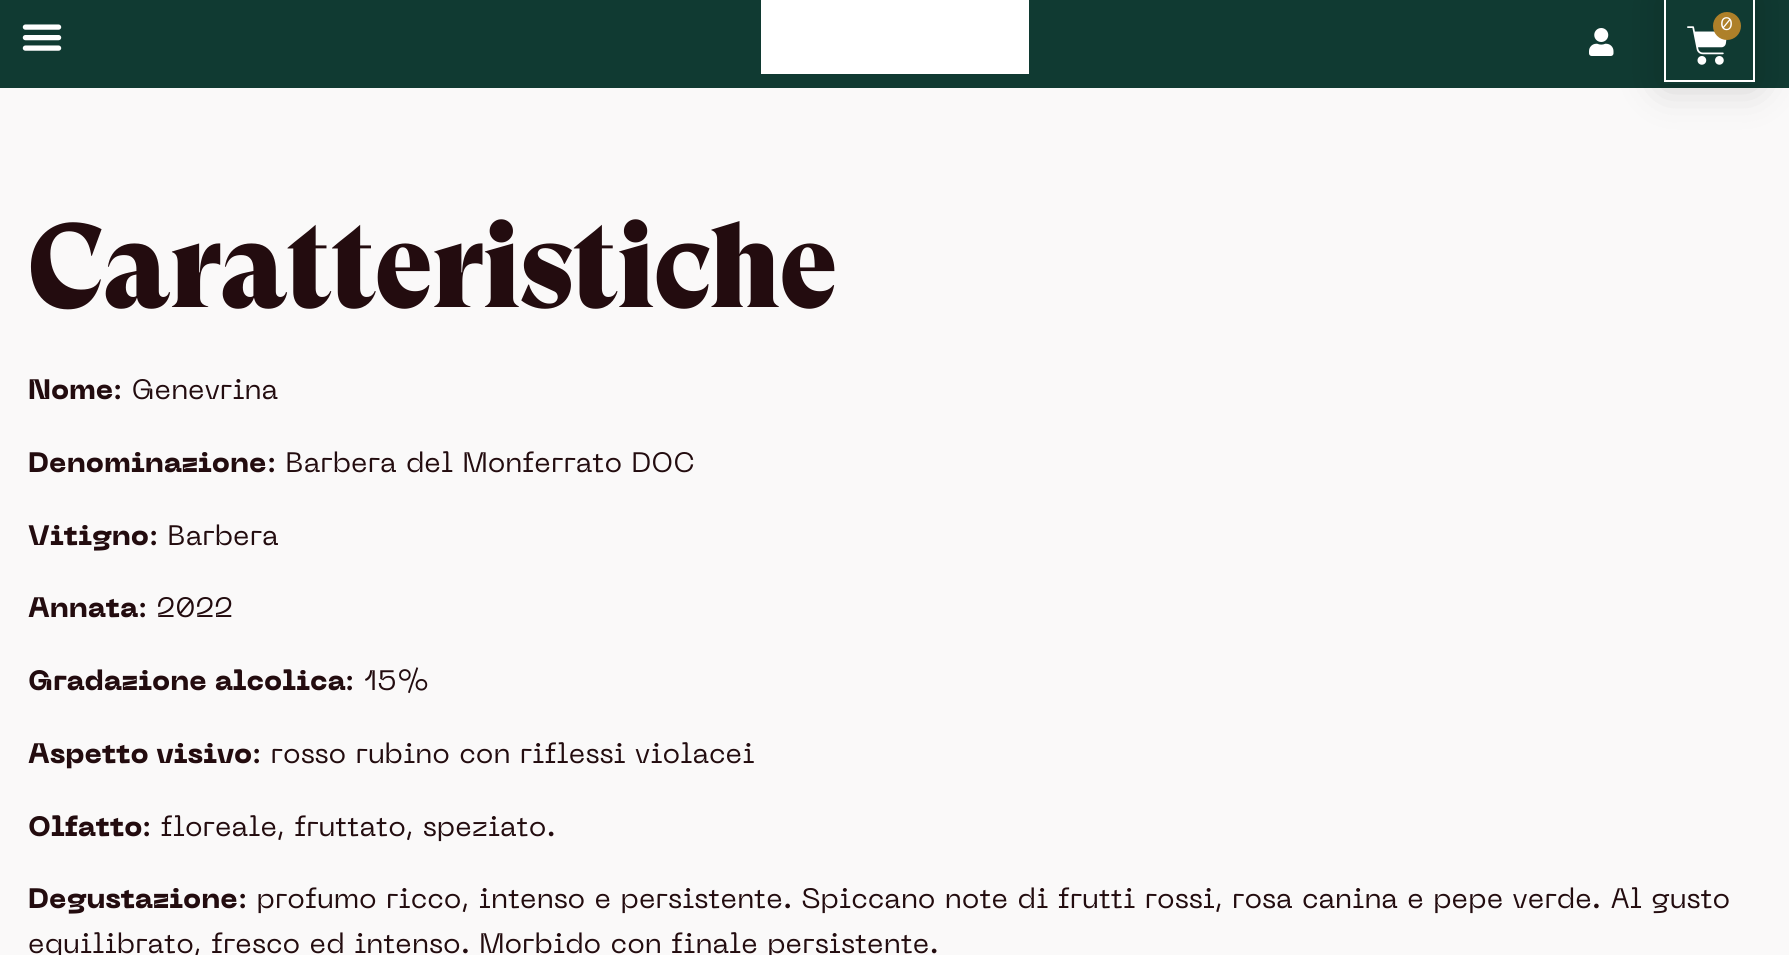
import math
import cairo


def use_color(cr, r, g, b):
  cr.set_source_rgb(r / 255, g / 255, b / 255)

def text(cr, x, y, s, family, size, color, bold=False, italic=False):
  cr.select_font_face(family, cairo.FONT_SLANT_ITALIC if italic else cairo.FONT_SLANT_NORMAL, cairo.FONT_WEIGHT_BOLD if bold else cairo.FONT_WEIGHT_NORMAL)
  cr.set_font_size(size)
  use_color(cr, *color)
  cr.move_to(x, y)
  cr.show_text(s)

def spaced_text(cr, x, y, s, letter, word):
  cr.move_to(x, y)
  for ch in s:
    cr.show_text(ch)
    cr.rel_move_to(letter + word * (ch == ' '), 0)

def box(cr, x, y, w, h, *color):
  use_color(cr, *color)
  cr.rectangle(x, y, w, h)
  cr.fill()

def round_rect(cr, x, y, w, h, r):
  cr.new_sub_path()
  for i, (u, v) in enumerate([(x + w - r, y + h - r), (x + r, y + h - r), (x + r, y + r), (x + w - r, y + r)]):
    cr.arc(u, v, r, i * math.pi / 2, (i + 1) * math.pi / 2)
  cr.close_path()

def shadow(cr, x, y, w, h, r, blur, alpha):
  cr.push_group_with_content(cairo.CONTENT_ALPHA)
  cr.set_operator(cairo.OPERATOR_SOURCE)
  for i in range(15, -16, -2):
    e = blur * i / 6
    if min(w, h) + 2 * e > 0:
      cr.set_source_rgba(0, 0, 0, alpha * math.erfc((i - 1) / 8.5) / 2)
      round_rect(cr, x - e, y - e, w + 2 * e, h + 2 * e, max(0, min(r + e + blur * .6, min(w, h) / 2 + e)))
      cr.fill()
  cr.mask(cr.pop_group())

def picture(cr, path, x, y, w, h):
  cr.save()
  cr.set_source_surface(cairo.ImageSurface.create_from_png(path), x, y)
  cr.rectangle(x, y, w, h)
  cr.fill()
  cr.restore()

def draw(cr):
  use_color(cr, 250, 249, 249)
  cr.paint()
  box(cr, 0, 0, 1789, 88, 16, 58, 50)
  picture(cr, "img_01.png", 22, 24, 40, 27)
  box(cr, 761, 0, 268, 74, 255, 255, 255)
  picture(cr, "img_02.png", 1589, 28, 25, 28)
  cr.save()
  cr.set_fill_rule(cairo.FILL_RULE_EVEN_ODD)
  cr.new_path()
  cr.move_to(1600, 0)
  cr.line_to(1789, 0)
  cr.line_to(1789, 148)
  cr.line_to(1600, 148)
  cr.close_path()
  cr.move_to(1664, -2)
  cr.line_to(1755, -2)
  cr.line_to(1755, 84)
  cr.line_to(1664, 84)
  cr.close_path()
  cr.clip()
  use_color(cr, 0, 0, 0)
  shadow(cr, 1664, -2, 91, 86, 0, 21, 0.2)
  cr.restore()
  cr.rectangle(1665, -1, 89, 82)
  cr.stroke()
  picture(cr, "img_03.png", 1687, 26, 40, 39)
  use_color(cr, 174, 128, 41)
  cr.arc(1727, 26, 14, 0, 2 * math.pi)
  cr.fill()
  text(cr, 1720, 30, "0", "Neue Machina", 18, (255, 255, 255))
  cr.select_font_face("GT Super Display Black")
  cr.set_font_size(117.75)
  use_color(cr, 35, 12, 15)
  spaced_text(cr, 28, 307, "Caratteristiche", -1.75, 0)
  text(cr, 28, 399, "Nome", "Neue Machina ExtraBold", 28, (35, 12, 15))
  text(cr, 113, 399, ": Genevrina", "Neue Machina", 28, (35, 12, 15))
  text(cr, 28, 472, "Denominazione", "Neue Machina ExtraBold", 28, (35, 12, 15))
  text(cr, 267, 472, ": Barbera del Monferrato DOC", "Neue Machina", 28, (35, 12, 15))
  text(cr, 28, 545, "Vitigno", "Neue Machina ExtraBold", 28, (35, 12, 15))
  text(cr, 149, 545, ": Barbera", "Neue Machina", 28, (35, 12, 15))
  text(cr, 28, 617, "Annata", "Neue Machina ExtraBold", 28, (35, 12, 15))
  text(cr, 138, 617, ": 2022", "Neue Machina", 28, (35, 12, 15))
  text(cr, 28, 690, "Gradazione alcolica", "Neue Machina ExtraBold", 28, (35, 12, 15))
  text(cr, 345, 690, ": 15%", "Neue Machina", 28, (35, 12, 15))
  text(cr, 28, 763, "Aspetto visivo", "Neue Machina ExtraBold", 28, (35, 12, 15))
  text(cr, 252, 763, ": rosso rubino con riflessi violacei", "Neue Machina", 28, (35, 12, 15))
  text(cr, 28, 836, "Olfatto", "Neue Machina ExtraBold", 28, (35, 12, 15))
  text(cr, 142, 836, ": floreale, fruttato, speziato.", "Neue Machina", 28, (35, 12, 15))
  text(cr, 28, 908, "Degustazione", "Neue Machina ExtraBold", 28, (35, 12, 15))
  text(cr, 238, 908, ": profumo ricco, intenso e persistente. Spiccano note di frutti rossi, rosa canina e pepe verde. Al gusto", "Neue Machina", 28, (35, 12, 15))
  text(cr, 28, 953, "equilibrato, fresco ed intenso. Morbido con finale persistente.", "Neue Machina", 28, (35, 12, 15))


surface = cairo.ImageSurface(cairo.FORMAT_RGB24, 1789, 955)
cr = cairo.Context(surface)
options = cairo.FontOptions()
options.set_hint_metrics(cairo.HINT_METRICS_OFF)
options.set_hint_style(cairo.HINT_STYLE_NONE)
cr.set_font_options(options)
cr.set_miter_limit(4)
draw(cr)
surface.write_to_png("out.png")
